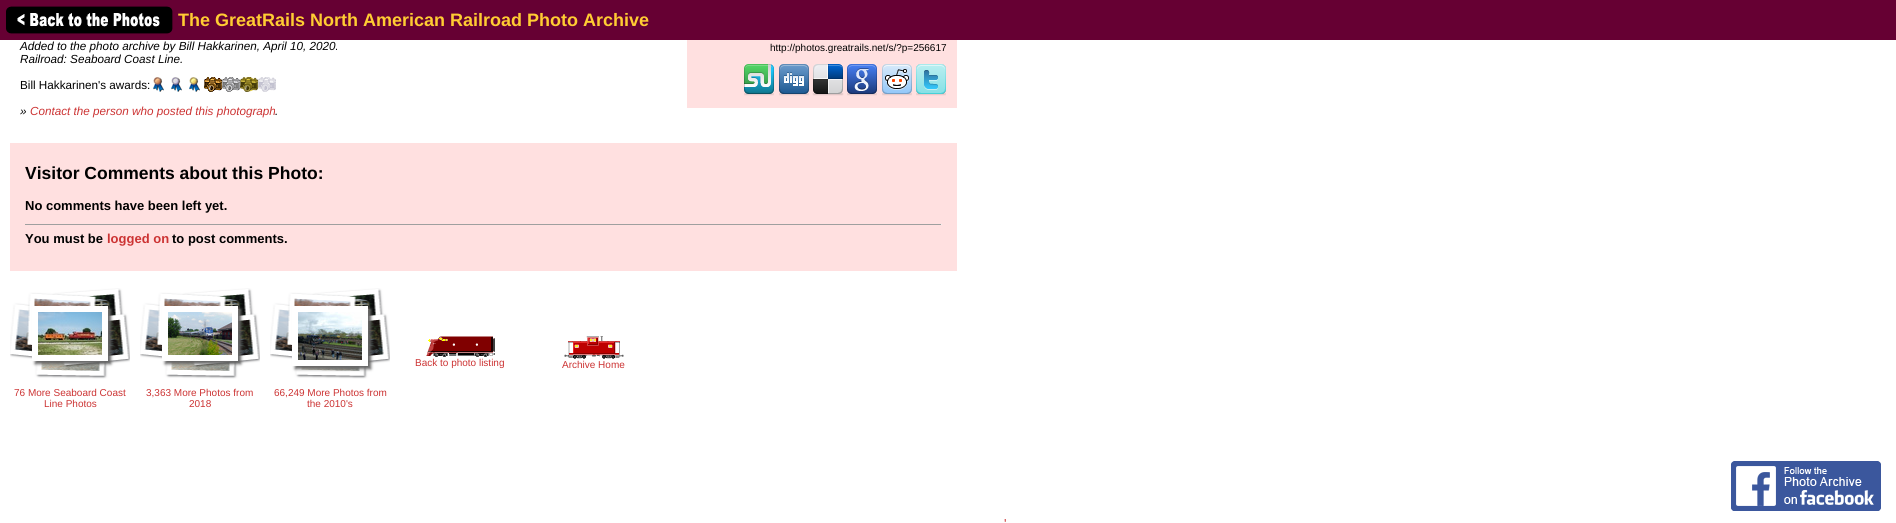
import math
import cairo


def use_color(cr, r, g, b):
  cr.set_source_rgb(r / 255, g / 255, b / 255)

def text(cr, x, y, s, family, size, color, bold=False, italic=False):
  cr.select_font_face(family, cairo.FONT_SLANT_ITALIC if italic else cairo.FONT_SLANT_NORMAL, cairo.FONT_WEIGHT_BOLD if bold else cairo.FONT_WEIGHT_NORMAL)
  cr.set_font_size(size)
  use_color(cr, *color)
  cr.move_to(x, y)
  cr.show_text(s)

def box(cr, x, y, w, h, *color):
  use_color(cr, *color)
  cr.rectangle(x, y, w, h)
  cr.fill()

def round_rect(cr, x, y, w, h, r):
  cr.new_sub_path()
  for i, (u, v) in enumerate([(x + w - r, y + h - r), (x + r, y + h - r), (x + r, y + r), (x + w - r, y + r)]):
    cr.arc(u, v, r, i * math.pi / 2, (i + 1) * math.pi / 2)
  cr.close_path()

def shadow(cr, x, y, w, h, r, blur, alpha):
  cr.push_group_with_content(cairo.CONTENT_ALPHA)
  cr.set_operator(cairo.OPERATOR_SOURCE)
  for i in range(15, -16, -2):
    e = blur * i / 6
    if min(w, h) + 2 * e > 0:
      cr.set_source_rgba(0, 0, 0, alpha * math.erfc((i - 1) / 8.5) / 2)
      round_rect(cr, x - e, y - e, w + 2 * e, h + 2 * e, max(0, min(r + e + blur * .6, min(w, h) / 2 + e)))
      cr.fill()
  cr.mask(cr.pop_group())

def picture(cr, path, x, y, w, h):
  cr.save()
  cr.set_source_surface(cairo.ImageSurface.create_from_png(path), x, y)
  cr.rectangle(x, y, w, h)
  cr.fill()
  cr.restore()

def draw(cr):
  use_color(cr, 255, 255, 255)
  cr.paint()
  box(cr, 0, 0, 1896, 40, 102, 0, 51)
  picture(cr, "img_01.png", 6, 6, 167, 28)
  picture(cr, "img_02.png", 153, 77, 11, 15)
  picture(cr, "img_03.png", 171, 77, 11, 15)
  picture(cr, "img_04.png", 189, 77, 11, 15)
  picture(cr, "img_05.png", 204, 77, 18, 15)
  picture(cr, "img_06.png", 222, 77, 18, 15)
  picture(cr, "img_07.png", 240, 77, 18, 15)
  picture(cr, "img_08.png", 258, 77, 18, 15)
  box(cr, 687, 40, 270, 68, 255, 224, 224)
  picture(cr, "img_09.png", 744, 64, 30, 32)
  picture(cr, "img_10.png", 779, 64, 30, 32)
  picture(cr, "img_11.png", 812, 64, 32, 32)
  picture(cr, "img_12.png", 847, 64, 30, 32)
  picture(cr, "img_13.png", 882, 64, 30, 32)
  picture(cr, "img_14.png", 916, 64, 30, 32)
  box(cr, 10, 143, 947, 128, 255, 224, 224)
  box(cr, 25, 224, 917, 1, 159, 159, 159)
  box(cr, 941, 224, 1, 1, 238, 238, 238)
  picture(cr, "img_15.png", 426, 336, 69, 21)
  picture(cr, "img_16.png", 564, 336, 60, 23)
  picture(cr, "img_17.png", 10, 288, 120, 91)
  use_color(cr, 102, 102, 102)
  shadow(cr, 35, 309, 76, 55, 0, 1.5, 1)
  box(cr, 32, 306, 76, 55, 255, 255, 255)
  picture(cr, "img_18.png", 38, 312, 64, 43)
  picture(cr, "img_17.png", 140, 288, 120, 91)
  use_color(cr, 102, 102, 102)
  shadow(cr, 165, 309, 76, 55, 0, 1.5, 1)
  box(cr, 162, 306, 76, 55, 255, 255, 255)
  picture(cr, "img_19.png", 168, 312, 64, 43)
  picture(cr, "img_17.png", 270, 288, 120, 91)
  use_color(cr, 102, 102, 102)
  shadow(cr, 295, 309, 76, 60, 0, 1.5, 1)
  box(cr, 292, 306, 76, 60, 255, 255, 255)
  picture(cr, "img_20.png", 298, 312, 64, 48)
  picture(cr, "img_21.png", 1731, 461, 150, 50)
  text(cr, 178, 26, "The GreatRails North American Railroad Photo Archive", "Liberation Sans", 18, (255, 204, 51), bold=True)
  text(cr, 20, 50, "Added to the photo archive by Bill Hakkarinen, April 10, 2020.", "Liberation Sans", 11.7, (0, 0, 0), italic=True)
  text(cr, 20, 63, "Railroad: Seaboard Coast Line.", "Liberation Sans", 11.7, (0, 0, 0), italic=True)
  text(cr, 20, 89, "Bill Hakkarinen's awards:", "Liberation Sans", 11.7, (0, 0, 0))
  text(cr, 20, 115, "»", "Liberation Sans", 11.7, (0, 0, 0), italic=True)
  text(cr, 30, 115, "Contact the person who posted this photograph", "Liberation Sans", 11.7, (204, 51, 51), italic=True)
  text(cr, 275, 115, ".", "Liberation Sans", 11.7, (0, 0, 0), italic=True)
  text(cr, 770, 51, "http://photos.greatrails.net/s/?p=256617", "Liberation Sans", 10, (0, 0, 0))
  text(cr, 25, 179, "Visitor Comments about this Photo:", "Liberation Sans", 17.5, (0, 0, 0), bold=True)
  text(cr, 25, 210, "No comments have been left yet.", "Liberation Sans", 13, (0, 0, 0), bold=True)
  text(cr, 25, 243, "You must be", "Liberation Sans", 13, (0, 0, 0), bold=True)
  text(cr, 107, 243, "logged on", "Liberation Sans", 13, (204, 51, 51), bold=True)
  text(cr, 172, 243, "to post comments.", "Liberation Sans", 13, (0, 0, 0), bold=True)
  text(cr, 415, 366, "Back to photo listing", "Liberation Sans", 10, (204, 51, 51))
  text(cr, 562, 368, "Archive Home", "Liberation Sans", 10, (204, 51, 51))
  text(cr, 14, 396, "76 More Seaboard Coast", "Liberation Sans", 10, (204, 51, 51))
  text(cr, 44, 407, "Line Photos", "Liberation Sans", 10, (204, 51, 51))
  text(cr, 146, 396, "3,363 More Photos from", "Liberation Sans", 10, (204, 51, 51))
  text(cr, 189, 407, "2018", "Liberation Sans", 10, (204, 51, 51))
  text(cr, 274, 396, "66,249 More Photos from", "Liberation Sans", 10, (204, 51, 51))
  text(cr, 307, 407, "the 2010's", "Liberation Sans", 10, (204, 51, 51))
  text(cr, 1004, 528, "'", "Liberation Sans", 13, (204, 51, 51))


surface = cairo.ImageSurface(cairo.FORMAT_RGB24, 1896, 523)
cr = cairo.Context(surface)
options = cairo.FontOptions()
options.set_hint_metrics(cairo.HINT_METRICS_OFF)
options.set_hint_style(cairo.HINT_STYLE_NONE)
cr.set_font_options(options)
cr.set_miter_limit(4)
draw(cr)
surface.write_to_png("out.png")
